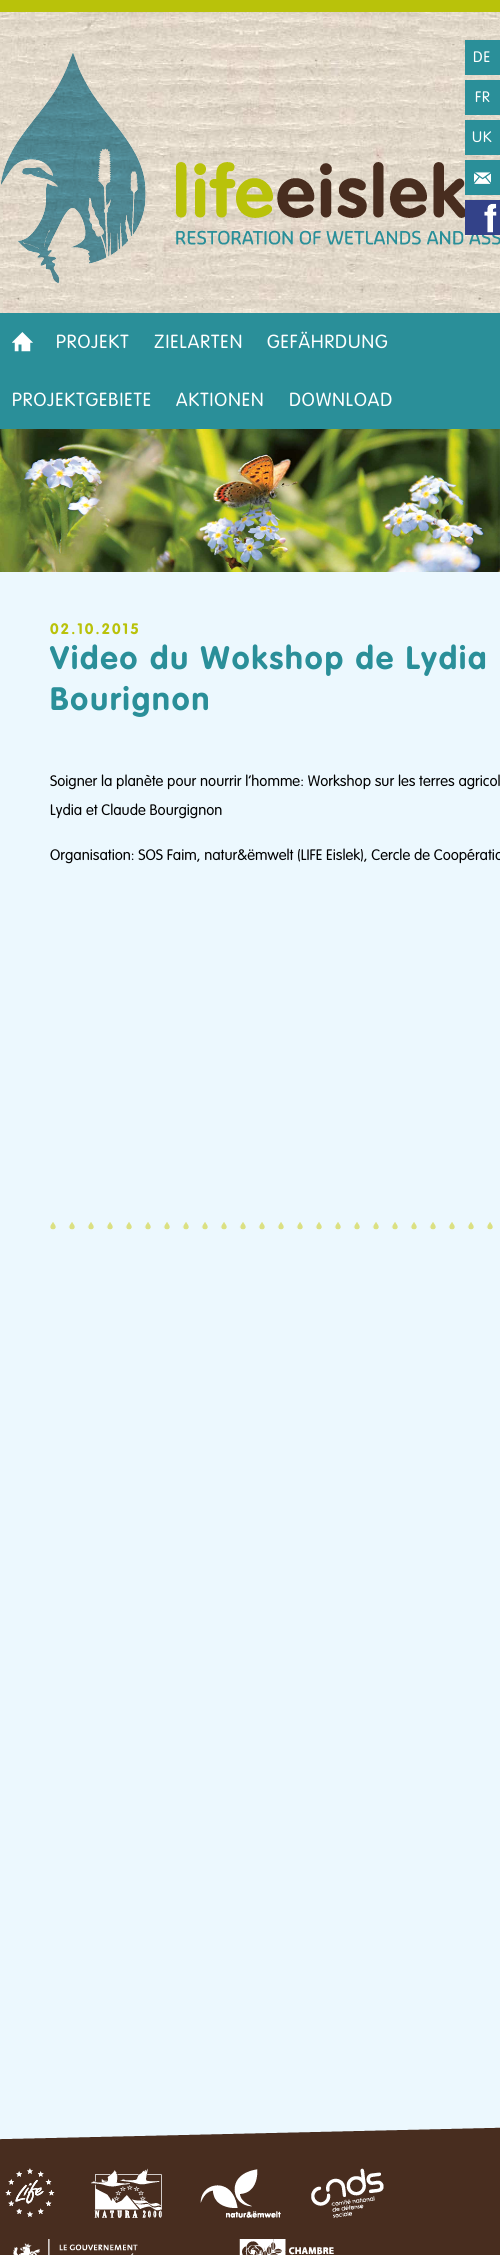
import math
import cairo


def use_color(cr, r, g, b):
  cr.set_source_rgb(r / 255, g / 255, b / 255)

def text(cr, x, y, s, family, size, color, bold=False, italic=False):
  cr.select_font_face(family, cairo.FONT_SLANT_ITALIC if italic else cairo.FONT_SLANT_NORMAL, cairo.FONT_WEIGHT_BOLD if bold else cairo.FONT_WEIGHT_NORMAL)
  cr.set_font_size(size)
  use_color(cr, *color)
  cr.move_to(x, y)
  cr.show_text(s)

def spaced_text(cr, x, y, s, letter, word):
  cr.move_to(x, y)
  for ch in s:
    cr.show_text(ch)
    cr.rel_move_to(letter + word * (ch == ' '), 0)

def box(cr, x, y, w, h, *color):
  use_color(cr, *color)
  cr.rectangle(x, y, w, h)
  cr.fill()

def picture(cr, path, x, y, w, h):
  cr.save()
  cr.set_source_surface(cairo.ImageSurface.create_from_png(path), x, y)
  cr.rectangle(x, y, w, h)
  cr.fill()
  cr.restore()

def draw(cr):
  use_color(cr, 236, 248, 254)
  cr.paint()
  picture(cr, "img_01.png", 0, 12, 500, 301)
  box(cr, 0, 0, 500, 12, 185, 194, 10)
  picture(cr, "img_02.png", 1, 53, 499, 230)
  box(cr, 465, 40, 35, 35, 42, 143, 153)
  box(cr, 465, 80, 35, 35, 42, 143, 153)
  box(cr, 465, 120, 35, 35, 42, 143, 153)
  box(cr, 465, 160, 35, 35, 42, 143, 153)
  picture(cr, "img_03.png", 474, 171, 17, 13)
  box(cr, 465, 200, 35, 35, 51, 66, 137)
  picture(cr, "img_04.png", 484, 203, 13, 30)
  box(cr, 0, 313, 500, 116, 42, 143, 153)
  picture(cr, "img_05.png", 12, 332, 21, 20)
  picture(cr, "img_06.png", 0, 429, 500, 143)
  picture(cr, "img_07.png", 50, 1222, 443, 8)
  picture(cr, "img_08.png", 0, 2127, 500, 128)
  picture(cr, "img_09.png", 5, 2168, 50, 49)
  picture(cr, "img_10.png", 91, 2168, 71, 50)
  picture(cr, "img_11.png", 200, 2169, 81, 49)
  picture(cr, "img_12.png", 311, 2168, 73, 50)
  picture(cr, "img_13.png", 13, 2239, 125, 16)
  picture(cr, "img_14.png", 239, 2239, 95, 16)
  cr.select_font_face("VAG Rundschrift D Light")
  cr.set_font_size(16)
  use_color(cr, 255, 255, 255)
  spaced_text(cr, 473, 62, "DE", 1, 0)
  spaced_text(cr, 475, 102, "FR", 1, 0)
  spaced_text(cr, 472, 142, "UK", 1, 0)
  cr.set_font_size(20)
  spaced_text(cr, 56, 348, "PROJEKT", 1, 0)
  spaced_text(cr, 154, 348, "ZIELARTEN", 1, 0)
  spaced_text(cr, 267, 348, "GEFÄHRDUNG", 1, 0)
  spaced_text(cr, 12, 406, "PROJEKTGEBIETE", 1, 0)
  spaced_text(cr, 176, 406, "AKTIONEN", 1, 0)
  spaced_text(cr, 289, 406, "DOWNLOAD", 1, 0)
  cr.select_font_face("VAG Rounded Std", cairo.FONT_SLANT_NORMAL, cairo.FONT_WEIGHT_BOLD)
  cr.set_font_size(15)
  use_color(cr, 185, 194, 10)
  spaced_text(cr, 50, 634, "02.10.2015", 2, 0)
  cr.set_font_size(32)
  use_color(cr, 42, 143, 153)
  spaced_text(cr, 50, 669, "Video du Wokshop de Lydia", 2, 0)
  spaced_text(cr, 50, 710, "Bourignon", 2, 0)
  text(cr, 50, 786, "Soigner la planète pour nourrir l’homme: Workshop sur les terres agricol", "VAG Rundschrift D Light", 16, (0, 0, 0))
  text(cr, 50, 815, "Lydia et Claude Bourgignon", "VAG Rundschrift D Light", 16, (0, 0, 0))
  text(cr, 50, 860, "Organisation: SOS Faim, natur&ëmwelt (LIFE Eislek), Cercle de Coopératio", "VAG Rundschrift D Light", 16, (0, 0, 0))


surface = cairo.ImageSurface(cairo.FORMAT_RGB24, 500, 2255)
cr = cairo.Context(surface)
options = cairo.FontOptions()
options.set_hint_metrics(cairo.HINT_METRICS_OFF)
options.set_hint_style(cairo.HINT_STYLE_NONE)
cr.set_font_options(options)
cr.set_miter_limit(4)
draw(cr)
surface.write_to_png("out.png")
